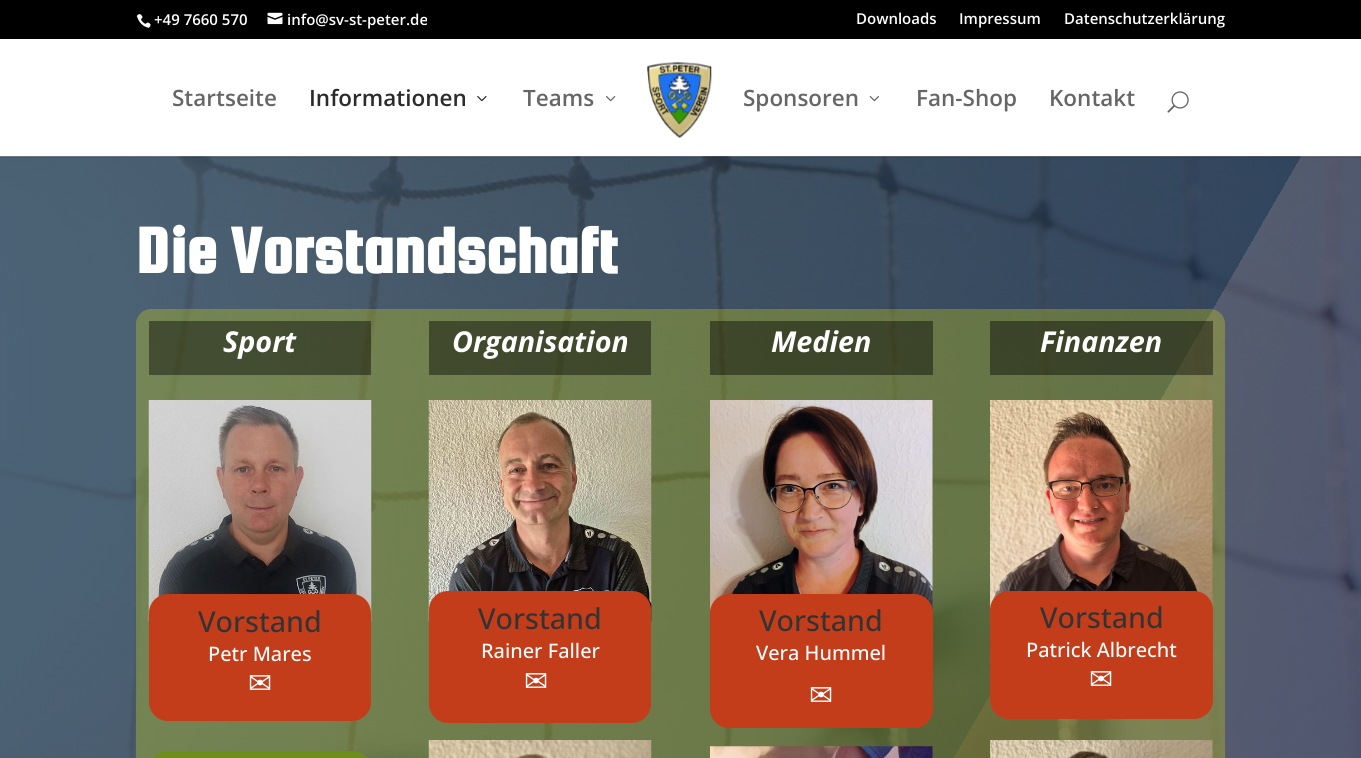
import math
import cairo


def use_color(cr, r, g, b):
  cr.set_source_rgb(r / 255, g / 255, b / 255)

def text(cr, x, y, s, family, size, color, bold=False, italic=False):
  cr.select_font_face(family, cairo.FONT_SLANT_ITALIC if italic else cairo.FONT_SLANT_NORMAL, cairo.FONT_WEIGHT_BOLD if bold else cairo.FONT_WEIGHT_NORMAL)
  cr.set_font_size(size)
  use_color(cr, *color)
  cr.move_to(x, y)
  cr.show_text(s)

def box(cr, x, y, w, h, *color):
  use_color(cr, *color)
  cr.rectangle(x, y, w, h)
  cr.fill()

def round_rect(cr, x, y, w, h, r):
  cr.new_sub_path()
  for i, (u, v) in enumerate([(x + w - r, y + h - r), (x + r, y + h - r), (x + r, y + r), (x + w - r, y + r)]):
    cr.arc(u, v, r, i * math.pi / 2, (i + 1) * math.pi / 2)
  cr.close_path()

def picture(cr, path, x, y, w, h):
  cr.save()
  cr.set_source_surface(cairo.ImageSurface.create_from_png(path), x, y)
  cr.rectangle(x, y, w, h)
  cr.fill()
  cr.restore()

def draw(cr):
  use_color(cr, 255, 255, 255)
  cr.paint()
  box(cr, 0, 0, 1361, 39, 0, 0, 0)
  picture(cr, "img_01.png", 136, 14, 15, 14)
  picture(cr, "img_02.png", 267, 12, 16, 13)
  picture(cr, "img_08.png", 0, 156, 1361, 602)
  cr.set_source_rgba(0, 0, 0, 0.1)
  cr.rectangle(0, 156, 1361, 2)
  cr.fill()
  picture(cr, "img_03.png", 477, 96, 10, 6)
  picture(cr, "img_04.png", 606, 96, 10, 6)
  picture(cr, "img_05.png", 647, 62, 65, 76)
  picture(cr, "img_06.png", 869, 96, 10, 6)
  picture(cr, "img_07.png", 1167, 91, 22, 22)
  cr.set_source_rgba(0.929, 0.941, 0, 0.26)
  round_rect(cr, 136, 309, 1089, 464, 15)
  cr.fill()
  cr.set_source_rgba(0, 0, 0, 0.42)
  cr.rectangle(149, 321, 222, 54)
  cr.fill()
  picture(cr, "img_09.png", 148, 400, 224, 222)
  use_color(cr, 196, 61, 27)
  round_rect(cr, 149, 594, 222, 127, 19)
  cr.fill()
  use_color(cr, 109, 142, 24)
  round_rect(cr, 149, 751, 222, 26, 19)
  cr.fill()
  cr.set_source_rgba(0, 0, 0, 0.42)
  cr.rectangle(429, 321, 222, 54)
  cr.fill()
  picture(cr, "img_10.png", 428, 400, 224, 222)
  use_color(cr, 196, 61, 27)
  round_rect(cr, 429, 591, 222, 132, 19)
  cr.fill()
  picture(cr, "img_11.png", 428, 740, 224, 18)
  cr.set_source_rgba(0, 0, 0, 0.42)
  cr.rectangle(710, 321, 223, 54)
  cr.fill()
  picture(cr, "img_12.png", 710, 400, 223, 210)
  use_color(cr, 196, 61, 27)
  round_rect(cr, 710, 594, 223, 134, 19)
  cr.fill()
  picture(cr, "img_13.png", 710, 746, 223, 12)
  cr.set_source_rgba(0, 0, 0, 0.42)
  cr.rectangle(990, 321, 223, 54)
  cr.fill()
  picture(cr, "img_14.png", 990, 400, 223, 210)
  use_color(cr, 196, 61, 27)
  round_rect(cr, 990, 591, 223, 128, 19)
  cr.fill()
  picture(cr, "img_15.png", 990, 740, 223, 18)
  text(cr, 154, 25, "+49 7660 570", "Open Sans SemiBold", 15, (255, 255, 255))
  text(cr, 287, 25, "info@sv-st-peter.de", "Open Sans SemiBold", 15, (255, 255, 255))
  text(cr, 856, 24, "Downloads", "Open Sans SemiBold", 15, (255, 255, 255))
  text(cr, 959, 24, "Impressum", "Open Sans SemiBold", 15, (255, 255, 255))
  text(cr, 1064, 24, "Datenschutzerklärung", "Open Sans SemiBold", 15, (255, 255, 255))
  text(cr, 172, 106, "Startseite", "Open Sans SemiBold", 22.5, (102, 102, 102))
  text(cr, 309, 106, "Informationen", "Open Sans SemiBold", 22.5, (43, 43, 43))
  text(cr, 523, 106, "Teams", "Open Sans SemiBold", 22.5, (102, 102, 102))
  text(cr, 743, 106, "Sponsoren", "Open Sans SemiBold", 22.5, (102, 102, 102))
  text(cr, 916, 106, "Fan-Shop", "Open Sans SemiBold", 22.5, (102, 102, 102))
  text(cr, 1049, 106, "Kontakt", "Open Sans SemiBold", 22.5, (102, 102, 102))
  text(cr, 136, 273, "Die Vorstandschaft", "Squada One", 68.75, (255, 255, 255), bold=True)
  text(cr, 223, 352, "Sport", "Open Sans", 28.75, (255, 255, 255), bold=True, italic=True)
  text(cr, 198, 632, "Vorstand", "Open Sans Medium", 28.75, (51, 51, 51))
  text(cr, 208, 661, "Petr Mares", "Open Sans Medium", 20, (255, 255, 255))
  text(cr, 248, 693, "✉", "DejaVu Sans", 28.75, (255, 255, 255))
  text(cr, 452, 352, "Organisation", "Open Sans", 28.75, (255, 255, 255), bold=True, italic=True)
  text(cr, 478, 629, "Vorstand", "Open Sans Medium", 28.75, (51, 51, 51))
  text(cr, 481, 658, "Rainer Faller", "Open Sans Medium", 20, (255, 255, 255))
  text(cr, 524, 691, "✉", "DejaVu Sans", 28.75, (255, 255, 255))
  text(cr, 771, 352, "Medien", "Open Sans", 28.75, (255, 255, 255), bold=True, italic=True)
  text(cr, 759, 631, "Vorstand", "Open Sans Medium", 28.75, (51, 51, 51))
  text(cr, 756, 660, "Vera Hummel", "Open Sans Medium", 20, (255, 255, 255))
  text(cr, 809, 705, "✉", "DejaVu Sans", 28.75, (255, 255, 255))
  text(cr, 1040, 352, "Finanzen", "Open Sans", 28.75, (255, 255, 255), bold=True, italic=True)
  text(cr, 1040, 628, "Vorstand", "Open Sans Medium", 28.75, (51, 51, 51))
  text(cr, 1026, 657, "Patrick Albrecht", "Open Sans Medium", 20, (255, 255, 255))
  text(cr, 1089, 689, "✉", "DejaVu Sans", 28.75, (255, 255, 255))


surface = cairo.ImageSurface(cairo.FORMAT_RGB24, 1361, 758)
cr = cairo.Context(surface)
options = cairo.FontOptions()
options.set_hint_metrics(cairo.HINT_METRICS_OFF)
options.set_hint_style(cairo.HINT_STYLE_NONE)
cr.set_font_options(options)
cr.set_miter_limit(4)
draw(cr)
surface.write_to_png("out.png")
